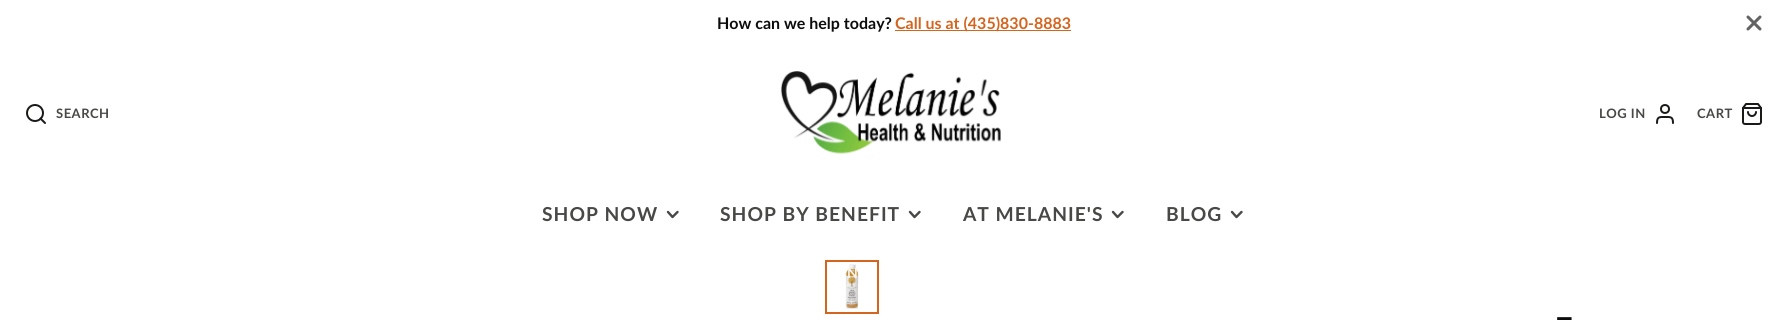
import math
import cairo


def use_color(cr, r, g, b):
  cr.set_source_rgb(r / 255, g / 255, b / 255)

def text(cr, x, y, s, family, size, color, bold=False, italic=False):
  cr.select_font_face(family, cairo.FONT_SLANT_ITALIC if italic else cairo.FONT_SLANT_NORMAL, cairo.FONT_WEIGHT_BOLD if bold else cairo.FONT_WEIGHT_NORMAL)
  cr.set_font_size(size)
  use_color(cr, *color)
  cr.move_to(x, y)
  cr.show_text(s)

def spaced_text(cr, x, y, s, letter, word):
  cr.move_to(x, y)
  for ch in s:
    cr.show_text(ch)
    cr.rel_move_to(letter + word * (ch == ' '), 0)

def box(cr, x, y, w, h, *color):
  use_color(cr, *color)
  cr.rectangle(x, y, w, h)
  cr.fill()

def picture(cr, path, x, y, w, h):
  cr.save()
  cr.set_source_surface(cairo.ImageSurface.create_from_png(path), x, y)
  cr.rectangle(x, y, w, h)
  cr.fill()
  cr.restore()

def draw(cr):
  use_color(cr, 255, 255, 255)
  cr.paint()
  box(cr, 895, 30, 176, 1, 212, 101, 31)
  cr.new_path()
  cr.move_to(1760, 17)
  cr.line_to(1748, 29)
  cr.move_to(1748, 17)
  cr.line_to(1760, 29)
  use_color(cr, 99, 99, 99)
  cr.set_line_width(3)
  cr.set_line_cap(cairo.LINE_CAP_ROUND)
  cr.set_line_join(cairo.LINE_JOIN_ROUND)
  cr.stroke()
  cr.arc(35, 113, 8, 0, 2 * math.pi)
  use_color(cr, 26, 27, 24)
  cr.set_line_width(2)
  cr.set_line_cap(cairo.LINE_CAP_BUTT)
  cr.set_line_join(cairo.LINE_JOIN_MITER)
  cr.stroke()
  cr.new_path()
  cr.move_to(45, 123)
  cr.line_to(40.5, 118.5)
  cr.set_line_cap(cairo.LINE_CAP_ROUND)
  cr.set_line_join(cairo.LINE_JOIN_ROUND)
  cr.stroke()
  picture(cr, "img_01.png", 780, 71, 221, 83)
  cr.arc(1665, 109, 4, 0, 2 * math.pi)
  cr.set_line_cap(cairo.LINE_CAP_BUTT)
  cr.set_line_join(cairo.LINE_JOIN_MITER)
  cr.stroke()
  cr.new_path()
  cr.move_to(1673, 123)
  cr.curve_to(1673, 116.5, 1670.5, 117, 1665, 117)
  cr.curve_to(1659.5, 117, 1657, 116.5, 1657, 123)
  cr.set_line_cap(cairo.LINE_CAP_ROUND)
  cr.set_line_join(cairo.LINE_JOIN_ROUND)
  cr.stroke()
  picture(cr, "img_02.png", 1742, 103, 20, 22)
  cr.new_path()
  cr.move_to(668, 212)
  cr.line_to(672.5, 217)
  cr.line_to(677.5, 212)
  use_color(cr, 72, 73, 70)
  cr.set_line_width(2.4)
  cr.stroke()
  cr.new_path()
  cr.move_to(910, 212)
  cr.line_to(914.5, 217)
  cr.line_to(919.5, 212)
  cr.stroke()
  cr.new_path()
  cr.move_to(1113, 212)
  cr.line_to(1117.5, 217)
  cr.line_to(1122.5, 212)
  cr.stroke()
  cr.new_path()
  cr.move_to(1232, 212)
  cr.line_to(1236.5, 217)
  cr.line_to(1241.5, 212)
  cr.stroke()
  cr.rectangle(826, 261, 52, 52)
  use_color(cr, 212, 101, 31)
  cr.set_line_width(2)
  cr.set_line_cap(cairo.LINE_CAP_BUTT)
  cr.set_line_join(cairo.LINE_JOIN_MITER)
  cr.stroke()
  picture(cr, "img_03.png", 845, 264, 14, 45)
  text(cr, 717, 29, "How can we help today?", "Lato", 16, (12, 12, 12), bold=True)
  text(cr, 895, 29, "Call us at (435)830-8883", "Lato", 16, (212, 101, 31), bold=True)
  cr.set_font_size(13)
  use_color(cr, 72, 73, 70)
  spaced_text(cr, 56, 118, "SEARCH", 0.5, 0)
  spaced_text(cr, 1599, 118, "LOG IN", 0.5, 0)
  spaced_text(cr, 1697, 118, "CART", 0.5, 0)
  cr.set_font_size(19.25)
  spaced_text(cr, 542, 221, "SHOP NOW", 1, 0)
  spaced_text(cr, 720, 221, "SHOP BY BENEFIT", 1, 0)
  text(cr, 847, 278, "N", "Lato", 14, (250, 244, 238), bold=True)
  cr.set_font_size(19.25)
  use_color(cr, 72, 73, 70)
  spaced_text(cr, 963, 221, "AT MELANIE'S", 1, 0)
  spaced_text(cr, 1166, 221, "BLOG", 1, 0)
  text(cr, 1554, 331, "-", "Proza Libre", 43, (12, 12, 12))


surface = cairo.ImageSurface(cairo.FORMAT_RGB24, 1788, 320)
cr = cairo.Context(surface)
options = cairo.FontOptions()
options.set_hint_metrics(cairo.HINT_METRICS_OFF)
options.set_hint_style(cairo.HINT_STYLE_NONE)
cr.set_font_options(options)
cr.set_miter_limit(4)
draw(cr)
surface.write_to_png("out.png")
